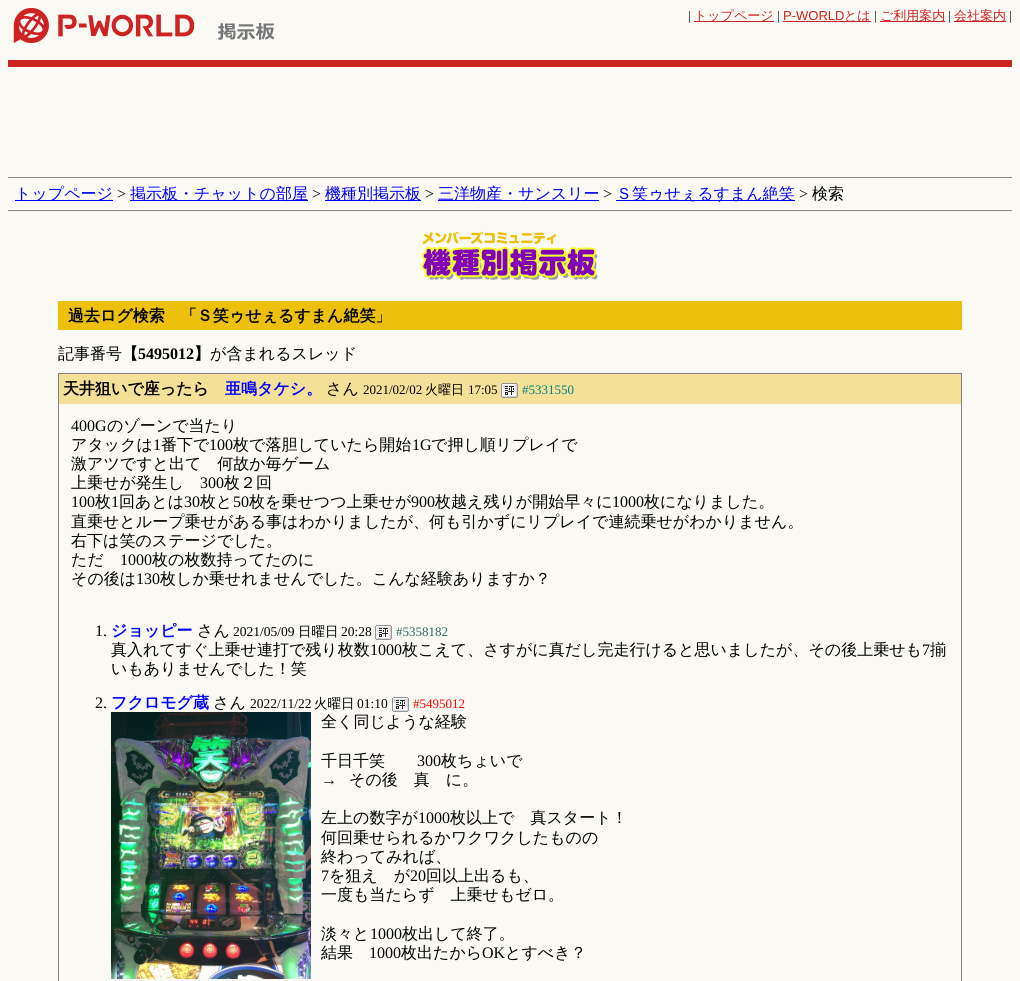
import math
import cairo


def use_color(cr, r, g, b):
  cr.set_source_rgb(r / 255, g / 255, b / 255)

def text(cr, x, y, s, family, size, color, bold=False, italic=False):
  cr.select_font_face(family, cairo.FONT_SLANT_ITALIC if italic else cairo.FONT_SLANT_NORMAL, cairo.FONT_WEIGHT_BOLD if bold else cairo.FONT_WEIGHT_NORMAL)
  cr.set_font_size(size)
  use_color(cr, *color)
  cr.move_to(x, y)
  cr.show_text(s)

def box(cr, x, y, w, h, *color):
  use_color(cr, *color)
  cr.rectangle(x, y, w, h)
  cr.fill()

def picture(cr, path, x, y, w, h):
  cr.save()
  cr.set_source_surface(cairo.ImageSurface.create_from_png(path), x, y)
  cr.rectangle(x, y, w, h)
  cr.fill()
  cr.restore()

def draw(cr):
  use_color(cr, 250, 249, 243)
  cr.paint()
  box(cr, 8, 60, 1004, 7, 206, 35, 35)
  picture(cr, "img_01.png", 13, 8, 182, 35)
  box(cr, 694, 21, 80, 1, 206, 35, 35)
  box(cr, 783, 21, 88, 1, 206, 35, 35)
  box(cr, 880, 21, 65, 1, 206, 35, 35)
  box(cr, 954, 21, 52, 1, 206, 35, 35)
  picture(cr, "img_02.png", 218, 23, 57, 17)
  box(cr, 8, 177, 1004, 1, 136, 136, 136)
  box(cr, 8, 210, 1004, 1, 136, 136, 136)
  box(cr, 15, 200, 98, 1, 0, 0, 255)
  box(cr, 130, 200, 178, 1, 0, 0, 255)
  box(cr, 325, 200, 96, 1, 0, 0, 255)
  box(cr, 438, 200, 161, 1, 0, 0, 255)
  box(cr, 616, 200, 179, 1, 0, 0, 255)
  picture(cr, "img_03.png", 421, 231, 177, 49)
  box(cr, 58, 301, 904, 29, 237, 192, 12)
  box(cr, 58, 373, 904, 1, 128, 128, 128)
  box(cr, 961, 373, 1, 608, 128, 128, 128)
  box(cr, 58, 373, 1, 608, 128, 128, 128)
  box(cr, 59, 374, 902, 30, 245, 224, 152)
  picture(cr, "img_04.png", 501, 383, 17, 15)
  picture(cr, "img_05.png", 375, 625, 17, 15)
  picture(cr, "img_05.png", 392, 697, 17, 15)
  picture(cr, "img_06.png", 111, 712, 200, 267)
  text(cr, 688, 20, "|", "Liberation Serif", 13, (0, 0, 0))
  text(cr, 694, 20, "トップページ", "WenQuanYi Zen Hei Medium", 13, (206, 35, 35))
  text(cr, 777, 20, "|", "Liberation Serif", 13, (0, 0, 0))
  text(cr, 783, 20, "P-WORLD", "Liberation Sans", 13, (206, 35, 35))
  text(cr, 844, 20, "とは", "WenQuanYi Zen Hei Medium", 13, (206, 35, 35))
  text(cr, 874, 20, "|", "Liberation Serif", 13, (0, 0, 0))
  text(cr, 880, 20, "ご利用案内", "WenQuanYi Zen Hei Medium", 13, (206, 35, 35))
  text(cr, 948, 20, "|", "Liberation Serif", 13, (0, 0, 0))
  text(cr, 954, 20, "会社案内", "WenQuanYi Zen Hei Medium", 13, (206, 35, 35))
  text(cr, 1009, 20, "|", "Liberation Serif", 13, (0, 0, 0))
  text(cr, 15, 199, "トップページ", "WenQuanYi Zen Hei Medium", 16, (0, 0, 255))
  text(cr, 117, 199, ">", "Liberation Serif", 16, (0, 0, 0))
  text(cr, 130, 199, "掲示板・チャットの部屋", "WenQuanYi Zen Hei Medium", 16, (0, 0, 255))
  text(cr, 312, 199, ">", "Liberation Serif", 16, (0, 0, 0))
  text(cr, 325, 199, "機種別掲示板", "WenQuanYi Zen Hei Medium", 16, (0, 0, 255))
  text(cr, 425, 199, ">", "Liberation Serif", 16, (0, 0, 0))
  text(cr, 438, 199, "三洋物産・サンスリー", "WenQuanYi Zen Hei Medium", 16, (0, 0, 255))
  text(cr, 603, 199, ">", "Liberation Serif", 16, (0, 0, 0))
  text(cr, 616, 199, "Ｓ笑ゥせぇるすまん絶笑", "WenQuanYi Zen Hei Medium", 16, (0, 0, 255))
  text(cr, 799, 199, ">", "Liberation Serif", 16, (0, 0, 0))
  text(cr, 812, 199, "検索", "WenQuanYi Zen Hei Medium", 16, (0, 0, 0))
  text(cr, 68, 321, "過去ログ検索　「Ｓ笑ゥせぇるすまん絶笑」", "WenQuanYi Zen Hei", 16, (0, 0, 0), bold=True)
  text(cr, 58, 359, "記事番号", "WenQuanYi Zen Hei Medium", 16, (0, 0, 0))
  text(cr, 122, 359, "【", "WenQuanYi Zen Hei", 16, (0, 0, 0), bold=True)
  text(cr, 138, 359, "5495012", "Liberation Serif", 16, (0, 0, 0), bold=True)
  text(cr, 194, 359, "】", "WenQuanYi Zen Hei", 16, (0, 0, 0), bold=True)
  text(cr, 210, 359, "が含まれるスレッド", "WenQuanYi Zen Hei Medium", 16, (0, 0, 0))
  text(cr, 63, 394, "天井狙いで座ったら", "WenQuanYi Zen Hei", 16, (0, 0, 0), bold=True)
  text(cr, 225, 394, "亜鳴タケシ。", "WenQuanYi Zen Hei", 16, (0, 0, 255), bold=True)
  text(cr, 326, 394, "さん", "WenQuanYi Zen Hei Medium", 16, (0, 0, 0))
  text(cr, 363, 394, "2021/02/02", "Liberation Serif", 13, (0, 0, 0))
  text(cr, 425, 394, "火曜日", "WenQuanYi Zen Hei Medium", 13, (0, 0, 0))
  text(cr, 468, 394, "17:05", "Liberation Serif", 13, (0, 0, 0))
  text(cr, 522, 394, "#5331550", "Liberation Serif", 13, (0, 128, 128))
  text(cr, 71, 431, "400G", "Liberation Serif", 16, (0, 0, 0))
  text(cr, 107, 431, "のゾーンで当たり", "WenQuanYi Zen Hei Medium", 16, (0, 0, 0))
  text(cr, 71, 450, "アタックは", "WenQuanYi Zen Hei Medium", 16, (0, 0, 0))
  text(cr, 153, 450, "1", "Liberation Serif", 16, (0, 0, 0))
  text(cr, 161, 450, "番下で", "WenQuanYi Zen Hei Medium", 16, (0, 0, 0))
  text(cr, 209, 450, "100", "Liberation Serif", 16, (0, 0, 0))
  text(cr, 233, 450, "枚で落胆していたら開始", "WenQuanYi Zen Hei Medium", 16, (0, 0, 0))
  text(cr, 412, 450, "1G", "Liberation Serif", 16, (0, 0, 0))
  text(cr, 431, 450, "で押し順リプレイで", "WenQuanYi Zen Hei Medium", 16, (0, 0, 0))
  text(cr, 71, 469, "激アツですと出て　何故か毎ゲーム", "WenQuanYi Zen Hei Medium", 16, (0, 0, 0))
  text(cr, 71, 488, "上乗せが発生し", "WenQuanYi Zen Hei Medium", 16, (0, 0, 0))
  text(cr, 200, 488, "300", "Liberation Serif", 16, (0, 0, 0))
  text(cr, 224, 488, "枚２回", "WenQuanYi Zen Hei Medium", 16, (0, 0, 0))
  text(cr, 71, 507, "100", "Liberation Serif", 16, (0, 0, 0))
  text(cr, 95, 507, "枚", "WenQuanYi Zen Hei Medium", 16, (0, 0, 0))
  text(cr, 111, 507, "1", "Liberation Serif", 16, (0, 0, 0))
  text(cr, 119, 507, "回あとは", "WenQuanYi Zen Hei Medium", 16, (0, 0, 0))
  text(cr, 184, 507, "30", "Liberation Serif", 16, (0, 0, 0))
  text(cr, 200, 507, "枚と", "WenQuanYi Zen Hei Medium", 16, (0, 0, 0))
  text(cr, 233, 507, "50", "Liberation Serif", 16, (0, 0, 0))
  text(cr, 249, 507, "枚を乗せつつ上乗せが", "WenQuanYi Zen Hei Medium", 16, (0, 0, 0))
  text(cr, 411, 507, "900", "Liberation Serif", 16, (0, 0, 0))
  text(cr, 435, 507, "枚越え残りが開始早々に", "WenQuanYi Zen Hei Medium", 16, (0, 0, 0))
  text(cr, 612, 507, "1000", "Liberation Serif", 16, (0, 0, 0))
  text(cr, 644, 507, "枚になりました。", "WenQuanYi Zen Hei Medium", 16, (0, 0, 0))
  text(cr, 71, 527, "直乗せとループ乗せがある事はわかりましたが、何も引かずにリプレイで連続乗せがわかりません。", "WenQuanYi Zen Hei Medium", 16, (0, 0, 0))
  text(cr, 71, 546, "右下は笑のステージでした。", "WenQuanYi Zen Hei Medium", 16, (0, 0, 0))
  text(cr, 71, 565, "ただ", "WenQuanYi Zen Hei Medium", 16, (0, 0, 0))
  text(cr, 120, 565, "1000", "Liberation Serif", 16, (0, 0, 0))
  text(cr, 152, 565, "枚の枚数持ってたのに", "WenQuanYi Zen Hei Medium", 16, (0, 0, 0))
  text(cr, 71, 584, "その後は", "WenQuanYi Zen Hei Medium", 16, (0, 0, 0))
  text(cr, 136, 584, "130", "Liberation Serif", 16, (0, 0, 0))
  text(cr, 160, 584, "枚しか乗せれませんでした。こんな経験ありますか？", "WenQuanYi Zen Hei Medium", 16, (0, 0, 0))
  text(cr, 95, 636, "1.", "Liberation Serif", 16, (0, 0, 0))
  text(cr, 111, 636, "ジョッピー", "WenQuanYi Zen Hei", 16, (0, 0, 255), bold=True)
  text(cr, 197, 636, "さん", "WenQuanYi Zen Hei Medium", 16, (0, 0, 0))
  text(cr, 233, 636, "2021/05/09", "Liberation Serif", 13.5, (0, 0, 0))
  text(cr, 298, 636, "日曜日", "WenQuanYi Zen Hei Medium", 13.5, (0, 0, 0))
  text(cr, 341, 636, "20:28", "Liberation Serif", 13.5, (0, 0, 0))
  text(cr, 396, 636, "#5358182", "Liberation Serif", 13, (51, 102, 102))
  text(cr, 111, 655, "真入れてすぐ上乗せ連打で残り枚数", "WenQuanYi Zen Hei Medium", 16, (0, 0, 0))
  text(cr, 370, 655, "1000", "Liberation Serif", 16, (0, 0, 0))
  text(cr, 402, 655, "枚こえて、さすがに真だし完走行けると思いましたが、その後上乗せも", "WenQuanYi Zen Hei Medium", 16, (0, 0, 0))
  text(cr, 922, 655, "7", "Liberation Serif", 16, (0, 0, 0))
  text(cr, 930, 655, "揃", "WenQuanYi Zen Hei Medium", 16, (0, 0, 0))
  text(cr, 111, 674, "いもありませんでした！笑", "WenQuanYi Zen Hei Medium", 16, (0, 0, 0))
  text(cr, 95, 708, "2.", "Liberation Serif", 16, (0, 0, 0))
  text(cr, 111, 708, "フクロモグ蔵", "WenQuanYi Zen Hei", 16, (0, 0, 255), bold=True)
  text(cr, 213, 708, "さん", "WenQuanYi Zen Hei Medium", 16, (0, 0, 0))
  text(cr, 250, 708, "2022/11/22", "Liberation Serif", 13.5, (0, 0, 0))
  text(cr, 314, 708, "火曜日", "WenQuanYi Zen Hei Medium", 13.5, (0, 0, 0))
  text(cr, 357, 708, "01:10", "Liberation Serif", 13.5, (0, 0, 0))
  text(cr, 413, 708, "#5495012", "Liberation Serif", 13, (255, 0, 0))
  text(cr, 321, 727, "全く同じような経験", "WenQuanYi Zen Hei Medium", 16, (0, 0, 0))
  text(cr, 321, 766, "千日千笑", "WenQuanYi Zen Hei Medium", 16, (0, 0, 0))
  text(cr, 417, 766, "300", "Liberation Serif", 16, (0, 0, 0))
  text(cr, 441, 766, "枚ちょいで", "WenQuanYi Zen Hei Medium", 16, (0, 0, 0))
  text(cr, 321, 785, "→", "Liberation Serif", 16, (0, 0, 0))
  text(cr, 349, 785, "その後　真　に。", "WenQuanYi Zen Hei Medium", 16, (0, 0, 0))
  text(cr, 321, 823, "左上の数字が", "WenQuanYi Zen Hei Medium", 16, (0, 0, 0))
  text(cr, 418, 823, "1000", "Liberation Serif", 16, (0, 0, 0))
  text(cr, 450, 823, "枚以上で　真スタート！", "WenQuanYi Zen Hei Medium", 16, (0, 0, 0))
  text(cr, 321, 843, "何回乗せられるかワクワクしたものの", "WenQuanYi Zen Hei Medium", 16, (0, 0, 0))
  text(cr, 321, 862, "終わってみれば、", "WenQuanYi Zen Hei Medium", 16, (0, 0, 0))
  text(cr, 321, 881, "7", "Liberation Serif", 16, (0, 0, 0))
  text(cr, 329, 881, "を狙え　が", "WenQuanYi Zen Hei Medium", 16, (0, 0, 0))
  text(cr, 410, 881, "20", "Liberation Serif", 16, (0, 0, 0))
  text(cr, 426, 881, "回以上出るも、", "WenQuanYi Zen Hei Medium", 16, (0, 0, 0))
  text(cr, 321, 900, "一度も当たらず　上乗せもゼロ。", "WenQuanYi Zen Hei Medium", 16, (0, 0, 0))
  text(cr, 321, 939, "淡々と", "WenQuanYi Zen Hei Medium", 16, (0, 0, 0))
  text(cr, 370, 939, "1000", "Liberation Serif", 16, (0, 0, 0))
  text(cr, 402, 939, "枚出して終了。", "WenQuanYi Zen Hei Medium", 16, (0, 0, 0))
  text(cr, 321, 958, "結果", "WenQuanYi Zen Hei Medium", 16, (0, 0, 0))
  text(cr, 369, 958, "1000", "Liberation Serif", 16, (0, 0, 0))
  text(cr, 401, 958, "枚出たから", "WenQuanYi Zen Hei Medium", 16, (0, 0, 0))
  text(cr, 482, 958, "OK", "Liberation Serif", 16, (0, 0, 0))
  text(cr, 505, 958, "とすべき？", "WenQuanYi Zen Hei Medium", 16, (0, 0, 0))


surface = cairo.ImageSurface(cairo.FORMAT_RGB24, 1020, 981)
cr = cairo.Context(surface)
options = cairo.FontOptions()
options.set_hint_metrics(cairo.HINT_METRICS_OFF)
options.set_hint_style(cairo.HINT_STYLE_NONE)
cr.set_font_options(options)
cr.set_miter_limit(4)
draw(cr)
surface.write_to_png("out.png")
